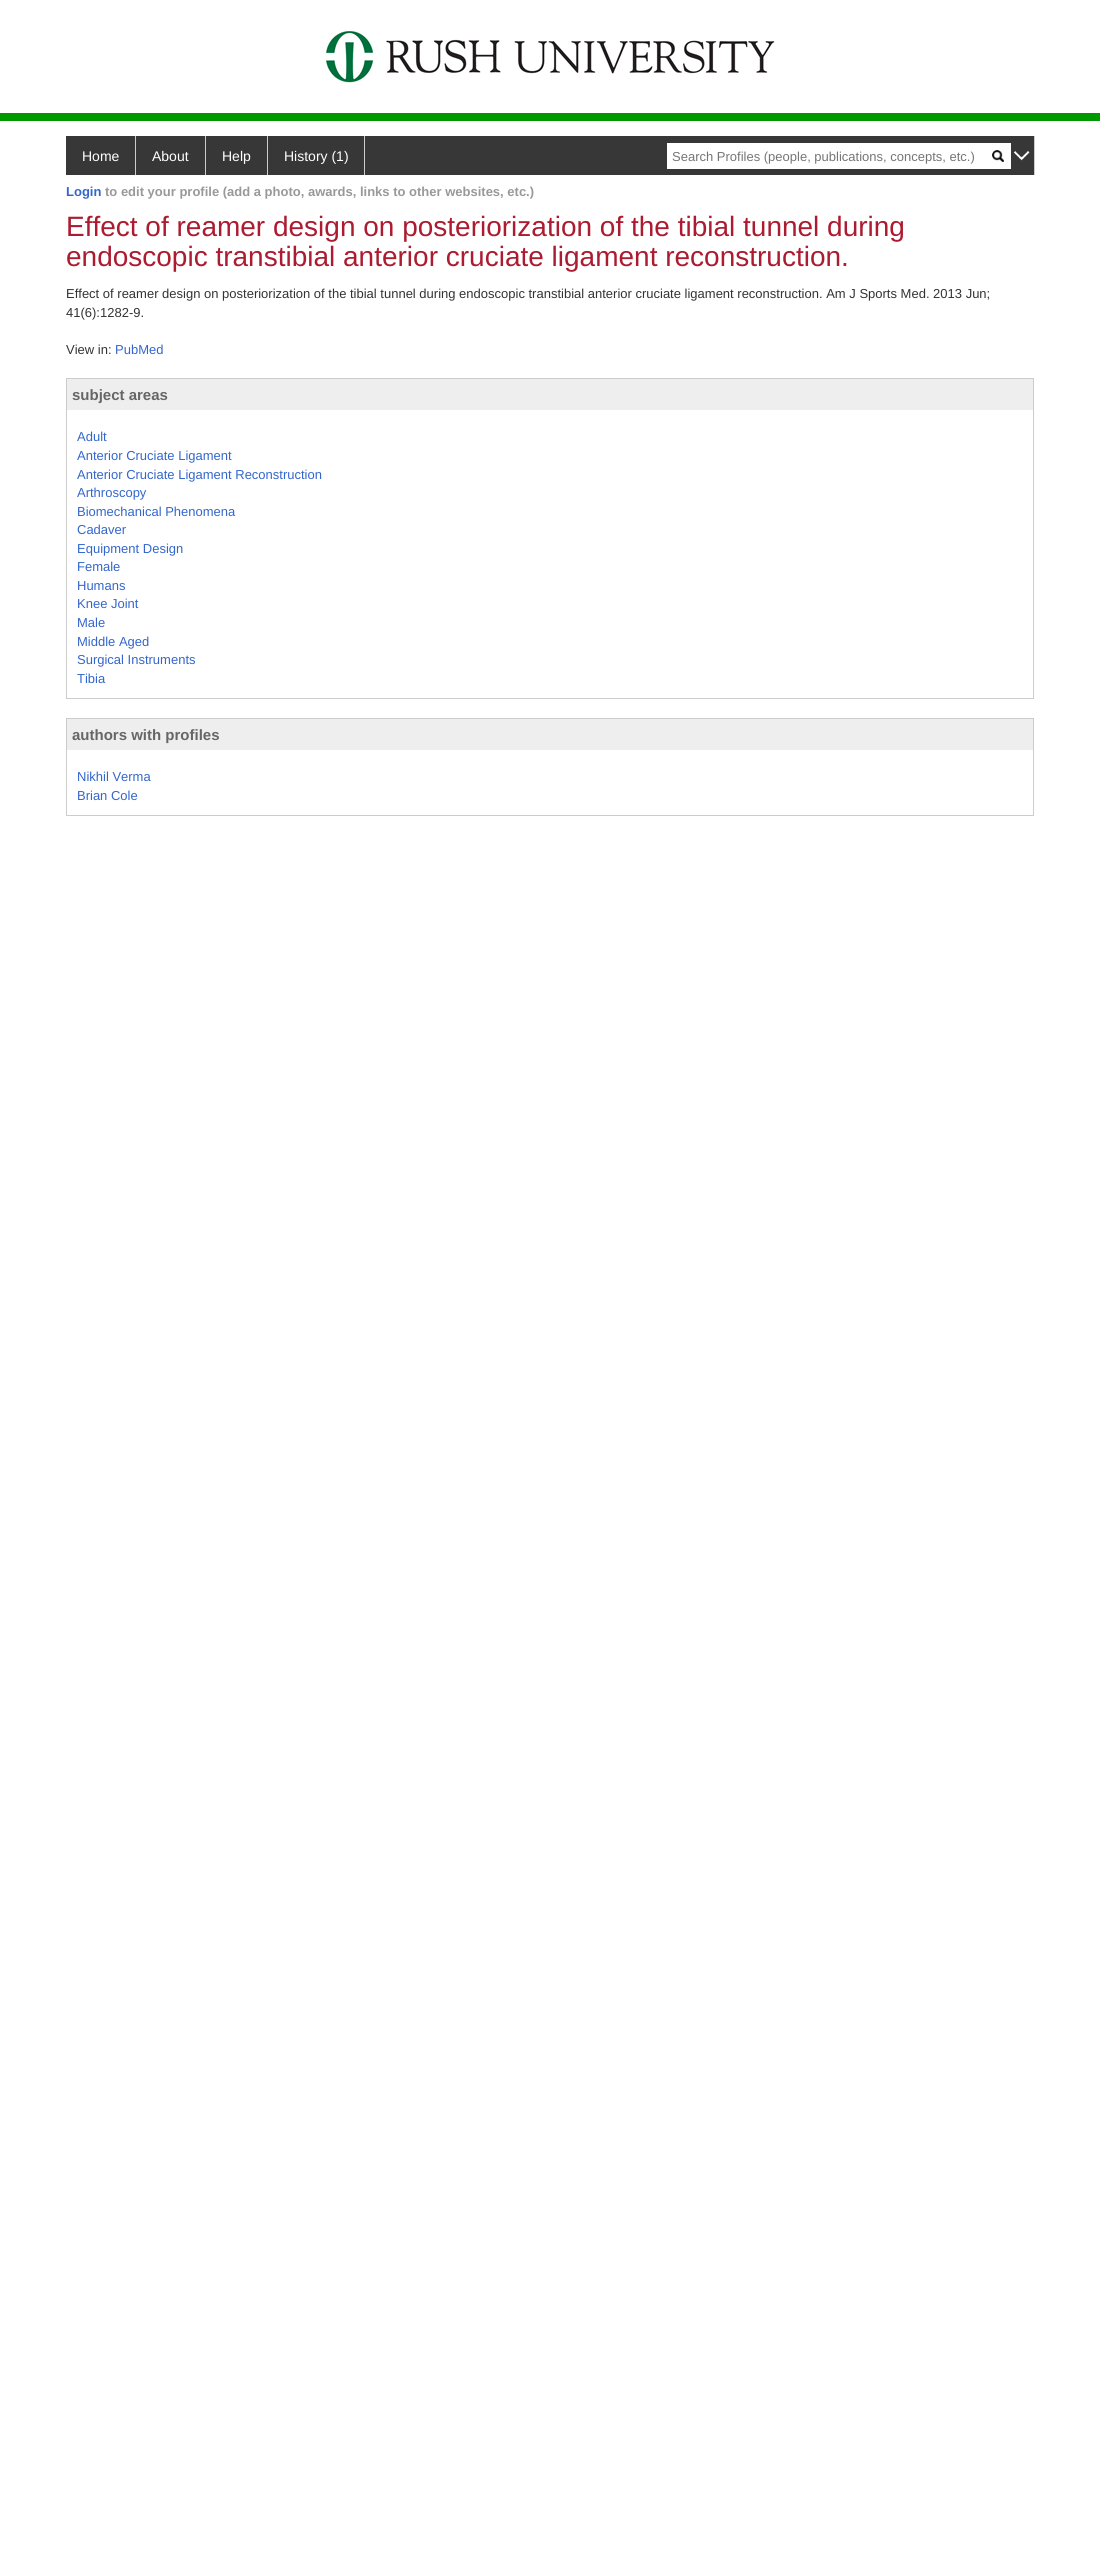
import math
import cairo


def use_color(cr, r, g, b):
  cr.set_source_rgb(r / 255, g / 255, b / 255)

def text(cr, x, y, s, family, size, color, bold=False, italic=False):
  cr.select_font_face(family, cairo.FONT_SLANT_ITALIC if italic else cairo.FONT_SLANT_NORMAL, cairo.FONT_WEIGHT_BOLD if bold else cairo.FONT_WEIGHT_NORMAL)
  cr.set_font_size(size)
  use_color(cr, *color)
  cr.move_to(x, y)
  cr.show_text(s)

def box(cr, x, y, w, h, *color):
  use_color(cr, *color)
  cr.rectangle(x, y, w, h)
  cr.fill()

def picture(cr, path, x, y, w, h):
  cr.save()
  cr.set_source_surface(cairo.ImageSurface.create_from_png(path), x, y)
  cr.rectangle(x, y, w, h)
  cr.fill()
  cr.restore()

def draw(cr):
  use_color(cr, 255, 255, 255)
  cr.paint()
  box(cr, 0, 113, 1100, 8, 0, 153, 0)
  picture(cr, "img_01.png", 326, 31, 449, 52)
  box(cr, 66, 136, 968, 39, 56, 55, 55)
  box(cr, 135, 136, 1, 39, 204, 204, 204)
  box(cr, 205, 136, 1, 39, 204, 204, 204)
  box(cr, 267, 136, 1, 39, 204, 204, 204)
  box(cr, 364, 136, 1, 39, 204, 204, 204)
  box(cr, 667, 143, 344, 26, 255, 255, 255)
  picture(cr, "img_02.png", 992, 150, 12, 12)
  box(cr, 1034, 136, 1, 39, 204, 204, 204)
  picture(cr, "img_03.png", 1013, 151, 17, 10)
  cr.rectangle(66.5, 378.5, 967, 320)
  cr.set_line_width(1)
  cr.stroke()
  box(cr, 67, 379, 966, 31, 238, 238, 238)
  cr.rectangle(66.5, 718.5, 967, 97)
  use_color(cr, 204, 204, 204)
  cr.stroke()
  box(cr, 67, 719, 966, 31, 238, 238, 238)
  text(cr, 82, 161, "Home", "Liberation Sans", 14, (255, 255, 255))
  text(cr, 152, 161, "About", "Liberation Sans", 14, (255, 255, 255))
  text(cr, 222, 161, "Help", "Liberation Sans", 14, (255, 255, 255))
  text(cr, 284, 161, "History (1)", "Liberation Sans", 14, (255, 255, 255))
  text(cr, 672, 161, "Search Profiles (people, publications, concepts, etc.)", "Liberation Sans", 13, (117, 117, 117))
  text(cr, 66, 196, "Login", "Liberation Sans", 13, (51, 102, 204), bold=True)
  text(cr, 105, 196, "to edit your profile (add a photo, awards, links to other websites, etc.)", "Liberation Sans", 13, (153, 153, 153), bold=True)
  text(cr, 66, 236, "Effect of reamer design on posteriorization of the tibial tunnel during", "Liberation Sans", 28, (172, 27, 48))
  text(cr, 66, 266, "endoscopic transtibial anterior cruciate ligament reconstruction.", "Liberation Sans", 28, (172, 27, 48))
  text(cr, 66, 298, "Effect of reamer design on posteriorization of the tibial tunnel during endoscopic transtibial anterior cruciate ligament reconstruction. Am J Sports Med. 2013 Jun;", "Liberation Sans", 13, (51, 51, 51))
  text(cr, 66, 317, "41(6):1282-9.", "Liberation Sans", 13, (51, 51, 51))
  text(cr, 66, 354, "View in:", "Liberation Sans", 13, (51, 51, 51))
  text(cr, 115, 354, "PubMed", "Liberation Sans", 13, (51, 102, 204))
  text(cr, 72, 400, "subject areas", "Liberation Sans", 15, (102, 102, 102), bold=True)
  text(cr, 77, 441, "Adult", "Liberation Sans", 13, (51, 102, 204))
  text(cr, 77, 460, "Anterior Cruciate Ligament", "Liberation Sans", 13, (51, 102, 204))
  text(cr, 77, 479, "Anterior Cruciate Ligament Reconstruction", "Liberation Sans", 13, (51, 102, 204))
  text(cr, 77, 497, "Arthroscopy", "Liberation Sans", 13, (51, 102, 204))
  text(cr, 77, 516, "Biomechanical Phenomena", "Liberation Sans", 13, (51, 102, 204))
  text(cr, 77, 534, "Cadaver", "Liberation Sans", 13, (51, 102, 204))
  text(cr, 77, 553, "Equipment Design", "Liberation Sans", 13, (51, 102, 204))
  text(cr, 77, 571, "Female", "Liberation Sans", 13, (51, 102, 204))
  text(cr, 77, 590, "Humans", "Liberation Sans", 13, (51, 102, 204))
  text(cr, 77, 608, "Knee Joint", "Liberation Sans", 13, (51, 102, 204))
  text(cr, 77, 627, "Male", "Liberation Sans", 13, (51, 102, 204))
  text(cr, 77, 646, "Middle Aged", "Liberation Sans", 13, (51, 102, 204))
  text(cr, 77, 664, "Surgical Instruments", "Liberation Sans", 13, (51, 102, 204))
  text(cr, 77, 683, "Tibia", "Liberation Sans", 13, (51, 102, 204))
  text(cr, 72, 740, "authors with profiles", "Liberation Sans", 15, (102, 102, 102), bold=True)
  text(cr, 77, 781, "Nikhil Verma", "Liberation Sans", 13, (51, 102, 204))
  text(cr, 77, 800, "Brian Cole", "Liberation Sans", 13, (51, 102, 204))


surface = cairo.ImageSurface(cairo.FORMAT_RGB24, 1100, 2553)
cr = cairo.Context(surface)
options = cairo.FontOptions()
options.set_hint_metrics(cairo.HINT_METRICS_OFF)
options.set_hint_style(cairo.HINT_STYLE_NONE)
cr.set_font_options(options)
cr.set_miter_limit(4)
draw(cr)
surface.write_to_png("out.png")
